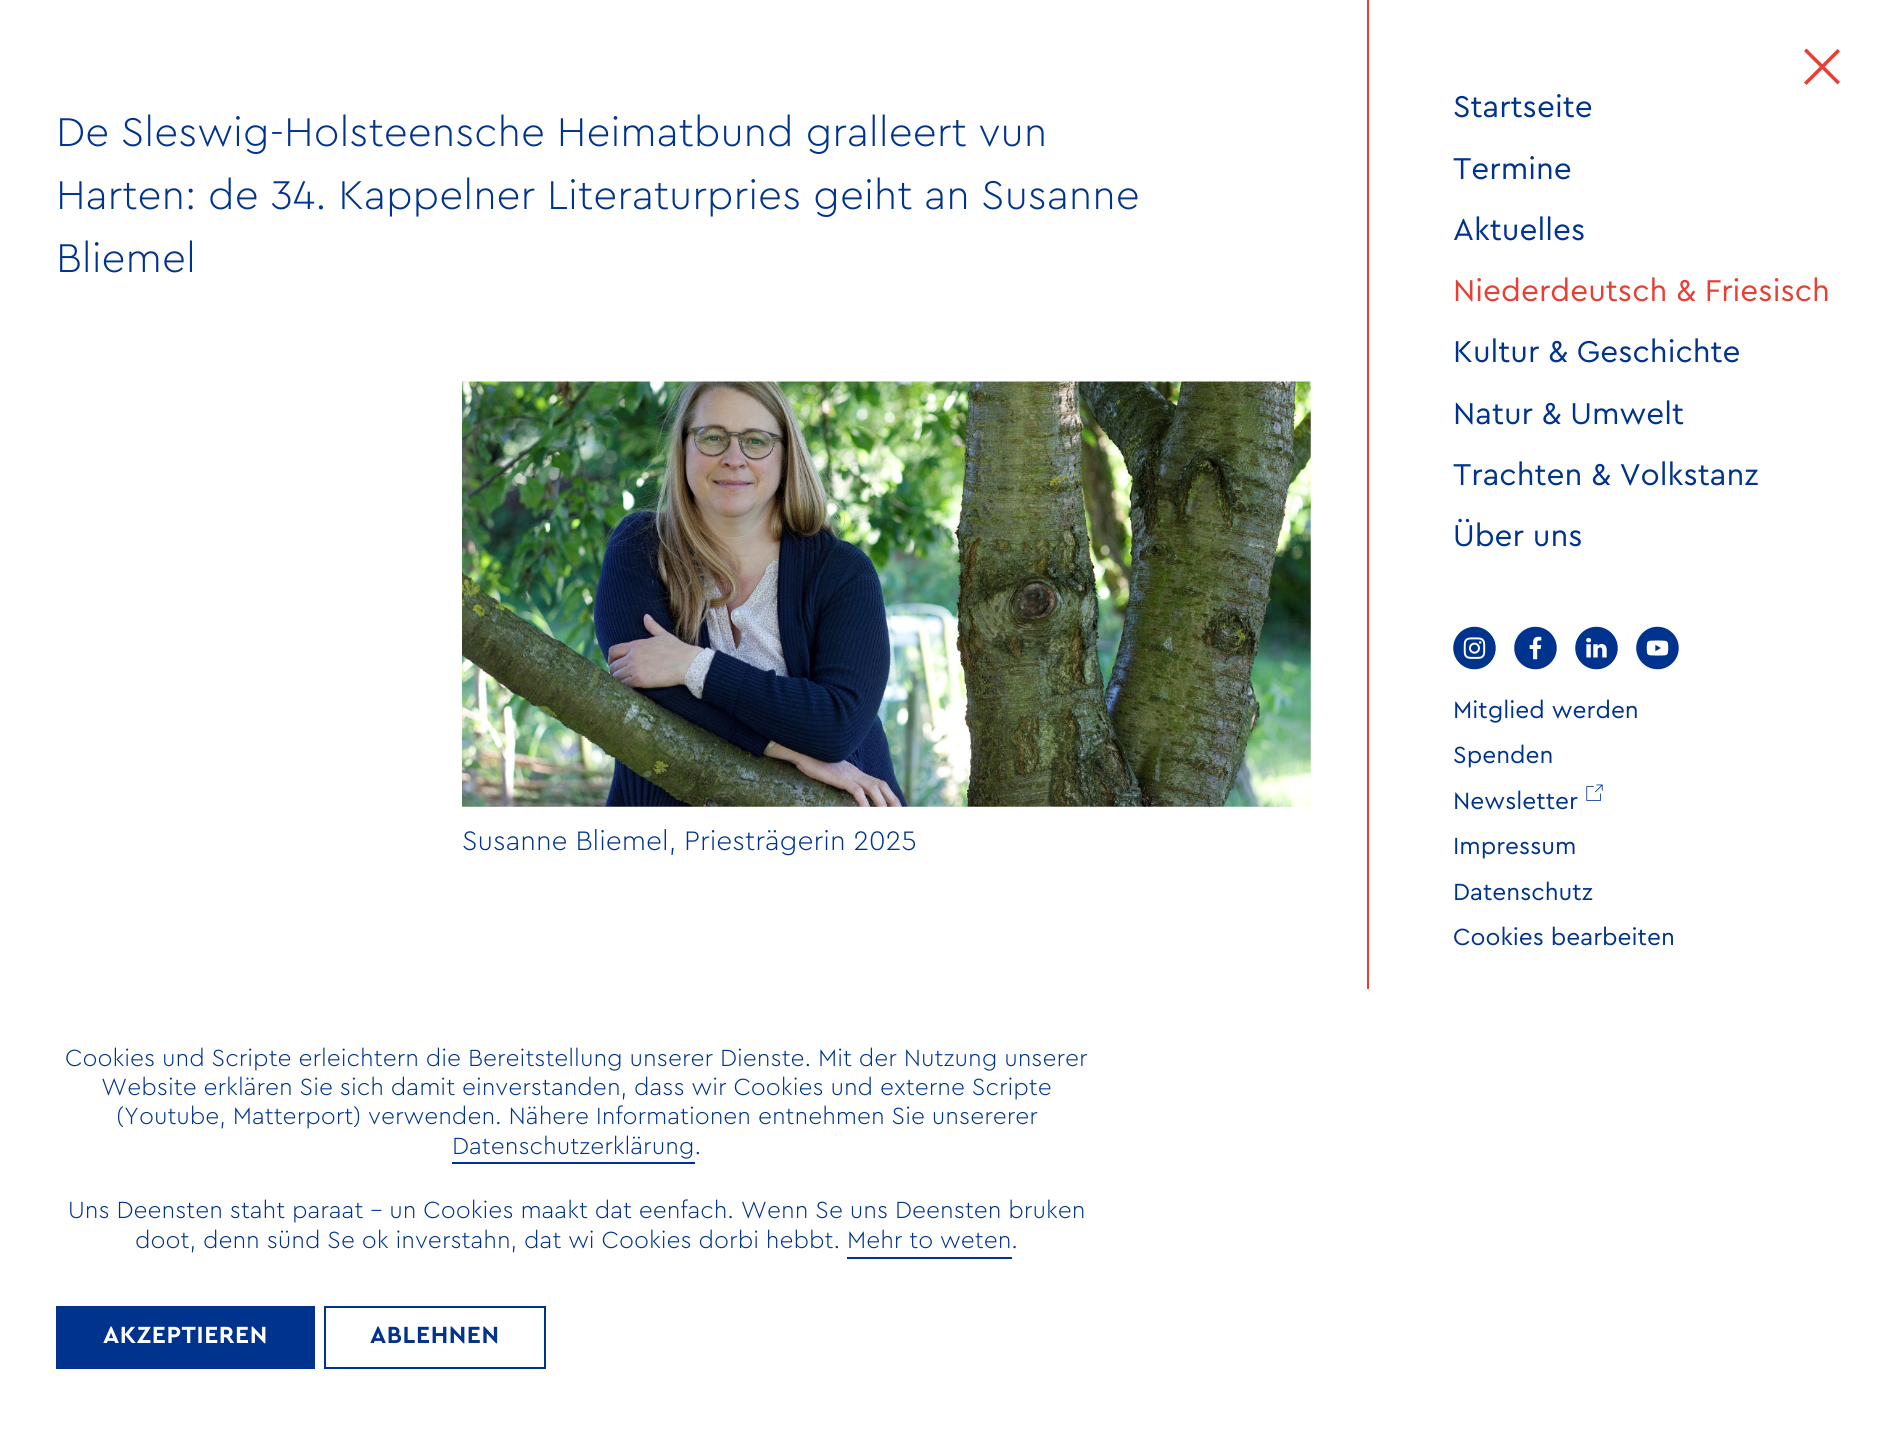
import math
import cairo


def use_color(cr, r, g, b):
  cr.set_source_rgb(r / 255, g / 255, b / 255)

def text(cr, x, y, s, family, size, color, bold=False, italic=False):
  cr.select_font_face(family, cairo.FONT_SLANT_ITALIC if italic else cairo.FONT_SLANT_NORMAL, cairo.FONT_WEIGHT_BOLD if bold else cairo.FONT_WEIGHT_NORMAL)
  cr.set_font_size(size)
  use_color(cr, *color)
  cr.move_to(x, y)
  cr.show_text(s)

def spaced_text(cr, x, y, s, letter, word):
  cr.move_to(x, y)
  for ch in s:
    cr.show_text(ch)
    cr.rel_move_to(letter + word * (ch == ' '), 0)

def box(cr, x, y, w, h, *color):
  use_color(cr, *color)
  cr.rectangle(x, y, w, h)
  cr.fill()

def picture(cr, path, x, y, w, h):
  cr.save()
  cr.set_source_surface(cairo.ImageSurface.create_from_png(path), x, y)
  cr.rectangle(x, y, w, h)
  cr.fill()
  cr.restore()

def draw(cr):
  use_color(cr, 255, 255, 255)
  cr.paint()
  picture(cr, "img_01.png", 462, 381, 849, 426)
  use_color(cr, 232, 62, 51)
  cr.new_path()
  cr.move_to(1806.5, 48.5)
  cr.line_to(1840, 82)
  cr.line_to(1837.5, 84.5)
  cr.line_to(1804, 51)
  cr.close_path()
  cr.fill()
  cr.new_path()
  cr.move_to(1804, 82.5)
  cr.line_to(1837.5, 49)
  cr.line_to(1840, 51.5)
  cr.line_to(1806.5, 85)
  cr.close_path()
  cr.fill()
  box(cr, 1367, 0, 2, 989, 232, 62, 51)
  picture(cr, "img_02.png", 1586, 784, 17, 17)
  box(cr, 452, 1162, 243, 2, 0, 51, 141)
  box(cr, 847, 1257, 165, 2, 0, 51, 141)
  box(cr, 56, 1306, 259, 63, 0, 51, 141)
  cr.rectangle(325, 1307, 220, 61)
  cr.stroke()
  text(cr, 56, 146, "De Sleswig-Holsteensche Heimatbund gralleert vun", "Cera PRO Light", 42, (0, 51, 141))
  text(cr, 56, 209, "Harten: de 34. Kappelner Literaturpries geiht an Susanne", "Cera PRO Light", 42, (0, 51, 141))
  text(cr, 56, 272, "Bliemel", "Cera PRO Light", 42, (0, 51, 141))
  text(cr, 462, 850, "Susanne Bliemel, Priesträgerin 2025", "Cera PRO Light", 28, (0, 51, 141))
  text(cr, 1453, 117, "Startseite", "Cera PRO", 31.5, (0, 51, 141))
  text(cr, 1453, 179, "Termine", "Cera PRO", 31.5, (0, 51, 141))
  text(cr, 1453, 240, "Aktuelles", "Cera PRO", 31.5, (0, 51, 141))
  text(cr, 1453, 301, "Niederdeutsch & Friesisch", "Cera PRO", 31.5, (232, 62, 51))
  text(cr, 1453, 362, "Kultur & Geschichte", "Cera PRO", 31.5, (0, 51, 141))
  text(cr, 1453, 424, "Natur & Umwelt", "Cera PRO", 31.5, (0, 51, 141))
  text(cr, 1453, 485, "Trachten & Volkstanz", "Cera PRO", 31.5, (0, 51, 141))
  text(cr, 1453, 546, "Über uns", "Cera PRO", 31.5, (0, 51, 141))
  text(cr, 1453, 662, "l", "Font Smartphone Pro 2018", 44, (0, 51, 141))
  text(cr, 1514, 662, "f", "Font Smartphone Pro 2018", 44, (0, 51, 141))
  text(cr, 1575, 662, "n", "Font Smartphone Pro 2018", 44, (0, 51, 141))
  text(cr, 1636, 662, "y", "Font Smartphone Pro 2018", 44, (0, 51, 141))
  text(cr, 1453, 718, "Mitglied werden", "Cera PRO", 24.5, (0, 51, 141))
  text(cr, 1453, 763, "Spenden", "Cera PRO", 24.5, (0, 51, 141))
  text(cr, 1453, 809, "Newsletter", "Cera PRO", 24.5, (0, 51, 141))
  text(cr, 1453, 854, "Impressum", "Cera PRO", 24.5, (0, 51, 141))
  text(cr, 1453, 900, "Datenschutz", "Cera PRO", 24.5, (0, 51, 141))
  text(cr, 1453, 945, "Cookies bearbeiten", "Cera PRO", 24.5, (0, 51, 141))
  text(cr, 65, 1066, "Cookies und Scripte erleichtern die Bereitstellung unserer Dienste. Mit der Nutzung unserer", "Cera PRO Light", 24.5, (0, 51, 141))
  text(cr, 101, 1095, "Website erklären Sie sich damit einverstanden, dass wir Cookies und externe Scripte", "Cera PRO Light", 24.5, (0, 51, 141))
  text(cr, 116, 1124, "(Youtube, Matterport) verwenden. Nähere Informationen entnehmen Sie unsererer", "Cera PRO Light", 24.5, (0, 51, 141))
  text(cr, 452, 1154, "Datenschutzerklärung.", "Cera PRO Light", 24.5, (0, 51, 141))
  text(cr, 68, 1218, "Uns Deensten staht paraat – un Cookies maakt dat eenfach. Wenn Se uns Deensten bruken", "Cera PRO Light", 24.5, (0, 51, 141))
  text(cr, 135, 1248, "doot, denn sünd Se ok inverstahn, dat wi Cookies dorbi hebbt. Mehr to weten.", "Cera PRO Light", 24.5, (0, 51, 141))
  cr.select_font_face("Cera PRO", cairo.FONT_SLANT_NORMAL, cairo.FONT_WEIGHT_BOLD)
  use_color(cr, 255, 255, 255)
  spaced_text(cr, 103, 1343, "AKZEPTIEREN", 0.6, 0)
  use_color(cr, 0, 51, 141)
  spaced_text(cr, 370, 1343, "ABLEHNEN", 0.6, 0)


surface = cairo.ImageSurface(cairo.FORMAT_RGB24, 1891, 1437)
cr = cairo.Context(surface)
options = cairo.FontOptions()
options.set_hint_metrics(cairo.HINT_METRICS_OFF)
options.set_hint_style(cairo.HINT_STYLE_NONE)
cr.set_font_options(options)
cr.set_miter_limit(4)
draw(cr)
surface.write_to_png("out.png")
